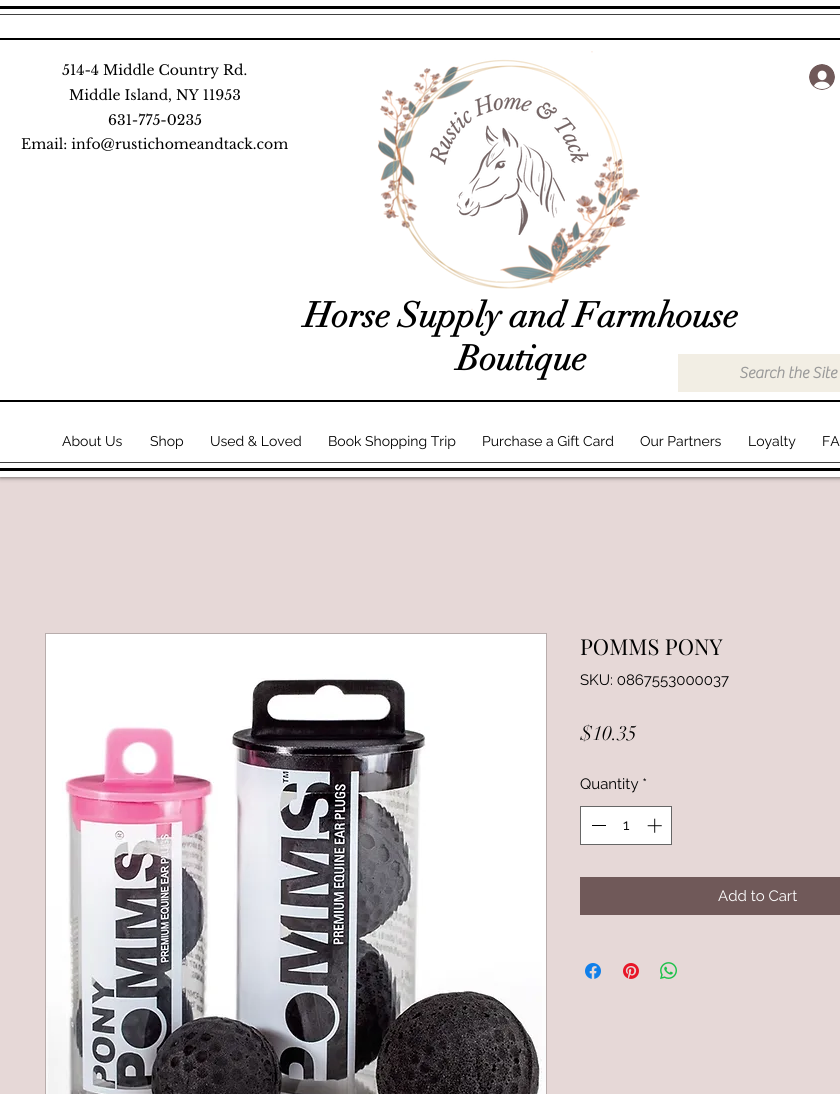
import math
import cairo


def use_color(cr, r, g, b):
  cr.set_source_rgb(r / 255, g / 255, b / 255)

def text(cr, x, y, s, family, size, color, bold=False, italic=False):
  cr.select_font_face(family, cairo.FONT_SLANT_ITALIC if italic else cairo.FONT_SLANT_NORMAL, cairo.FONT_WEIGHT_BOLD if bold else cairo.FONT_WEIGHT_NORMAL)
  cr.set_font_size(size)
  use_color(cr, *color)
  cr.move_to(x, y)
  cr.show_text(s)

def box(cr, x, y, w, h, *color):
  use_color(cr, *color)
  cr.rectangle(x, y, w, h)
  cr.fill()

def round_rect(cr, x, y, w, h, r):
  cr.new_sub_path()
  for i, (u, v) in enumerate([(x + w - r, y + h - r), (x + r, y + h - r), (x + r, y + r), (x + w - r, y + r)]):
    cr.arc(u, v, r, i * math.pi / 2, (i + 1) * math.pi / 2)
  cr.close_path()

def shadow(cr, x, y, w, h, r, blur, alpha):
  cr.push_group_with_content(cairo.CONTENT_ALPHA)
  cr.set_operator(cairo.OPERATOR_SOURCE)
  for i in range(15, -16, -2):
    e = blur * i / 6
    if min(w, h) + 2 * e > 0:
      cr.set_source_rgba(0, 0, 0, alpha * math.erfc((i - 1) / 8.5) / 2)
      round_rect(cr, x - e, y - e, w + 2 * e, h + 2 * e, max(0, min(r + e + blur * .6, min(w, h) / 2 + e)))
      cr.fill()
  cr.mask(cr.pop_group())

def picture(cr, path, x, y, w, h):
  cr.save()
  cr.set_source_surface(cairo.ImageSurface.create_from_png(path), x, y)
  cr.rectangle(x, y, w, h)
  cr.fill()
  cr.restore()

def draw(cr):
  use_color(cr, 230, 216, 215)
  cr.paint()
  use_color(cr, 0, 0, 0)
  shadow(cr, 0, 0, 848, 477, 0, 2.5, 0.7)
  box(cr, 0, 0, 840, 477, 255, 255, 255)
  box(cr, 0, 6, 840, 3, 0, 0, 0)
  box(cr, 0, 468, 840, 3, 0, 0, 0)
  box(cr, 0, 14, 840, 1, 64, 64, 64)
  box(cr, 0, 462, 840, 1, 64, 64, 64)
  box(cr, 0, 38, 840, 2, 0, 0, 0)
  picture(cr, "img_02.png", 809, 64, 26, 26)
  box(cr, 678, 354, 162, 38, 242, 238, 228)
  box(cr, 0, 400, 840, 2, 0, 0, 0)
  cr.rectangle(45.5, 633.5, 501, 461)
  use_color(cr, 184, 173, 172)
  cr.set_line_width(1)
  cr.stroke()
  picture(cr, "img_03.png", 46, 634, 500, 460)
  use_color(cr, 255, 255, 255)
  cr.rectangle(580.5, 806.5, 91, 38)
  cr.fill_preserve()
  use_color(cr, 102, 102, 102)
  cr.stroke()
  box(cr, 592, 825, 14, 1, 0, 0, 0)
  picture(cr, "img_04.png", 647, 818, 15, 15)
  box(cr, 580, 877, 260, 38, 112, 89, 89)
  picture(cr, "img_05.png", 585, 963, 16, 16)
  picture(cr, "img_06.png", 623, 963, 16, 16)
  picture(cr, "img_07.png", 660, 962, 17, 17)
  text(cr, 62, 75, "514-4 Middle Country Rd.", "Libre Baskerville", 14, (0, 0, 0))
  text(cr, 69, 100, "Middle Island, NY 11953", "Libre Baskerville", 14, (0, 0, 0))
  text(cr, 108, 125, "631-775-0235", "Libre Baskerville", 14, (0, 0, 0))
  text(cr, 21, 149, "Email: info@rustichomeandtack.com", "Libre Baskerville", 14, (0, 0, 0))
  text(cr, 304, 327, "Horse Supply and Farmhouse", "didot", 35, (0, 0, 0), bold=True)
  picture(cr, "img_01.png", 378, 51, 262, 259)
  text(cr, 457, 370, "Boutique", "didot", 35, (0, 0, 0), bold=True)
  text(cr, 739, 378, "Search the Site", "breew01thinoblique", 16, (153, 153, 153), bold=True)
  text(cr, 62, 446, "About Us", "Raleway", 14, (0, 0, 0))
  text(cr, 150, 446, "Shop", "Raleway", 14, (0, 0, 0))
  text(cr, 210, 446, "Used & Loved", "Raleway", 14, (0, 0, 0))
  text(cr, 328, 446, "Book Shopping Trip", "Raleway", 14, (0, 0, 0))
  text(cr, 482, 446, "Purchase a Gift Card", "Raleway", 14, (0, 0, 0))
  text(cr, 640, 446, "Our Partners", "Raleway", 14, (0, 0, 0))
  text(cr, 748, 446, "Loyalty", "Raleway", 14, (0, 0, 0))
  text(cr, 822, 446, "FA", "Raleway", 14, (0, 0, 0))
  text(cr, 580, 655, "POMMS PONY", "Playfair Display", 22, (0, 0, 0))
  text(cr, 580, 685, "SKU: 0867553000037", "Raleway", 15, (0, 0, 0))
  text(cr, 580, 740, "$10.35", "didot", 20, (0, 0, 0))
  text(cr, 580, 789, "Quantity *", "Raleway", 15, (0, 0, 0))
  text(cr, 623, 830, "1", "Raleway", 15, (0, 0, 0))
  text(cr, 718, 901, "Add to Cart", "Raleway", 15, (255, 255, 255))


surface = cairo.ImageSurface(cairo.FORMAT_RGB24, 840, 1094)
cr = cairo.Context(surface)
options = cairo.FontOptions()
options.set_hint_metrics(cairo.HINT_METRICS_OFF)
options.set_hint_style(cairo.HINT_STYLE_NONE)
cr.set_font_options(options)
cr.set_miter_limit(4)
draw(cr)
surface.write_to_png("out.png")
